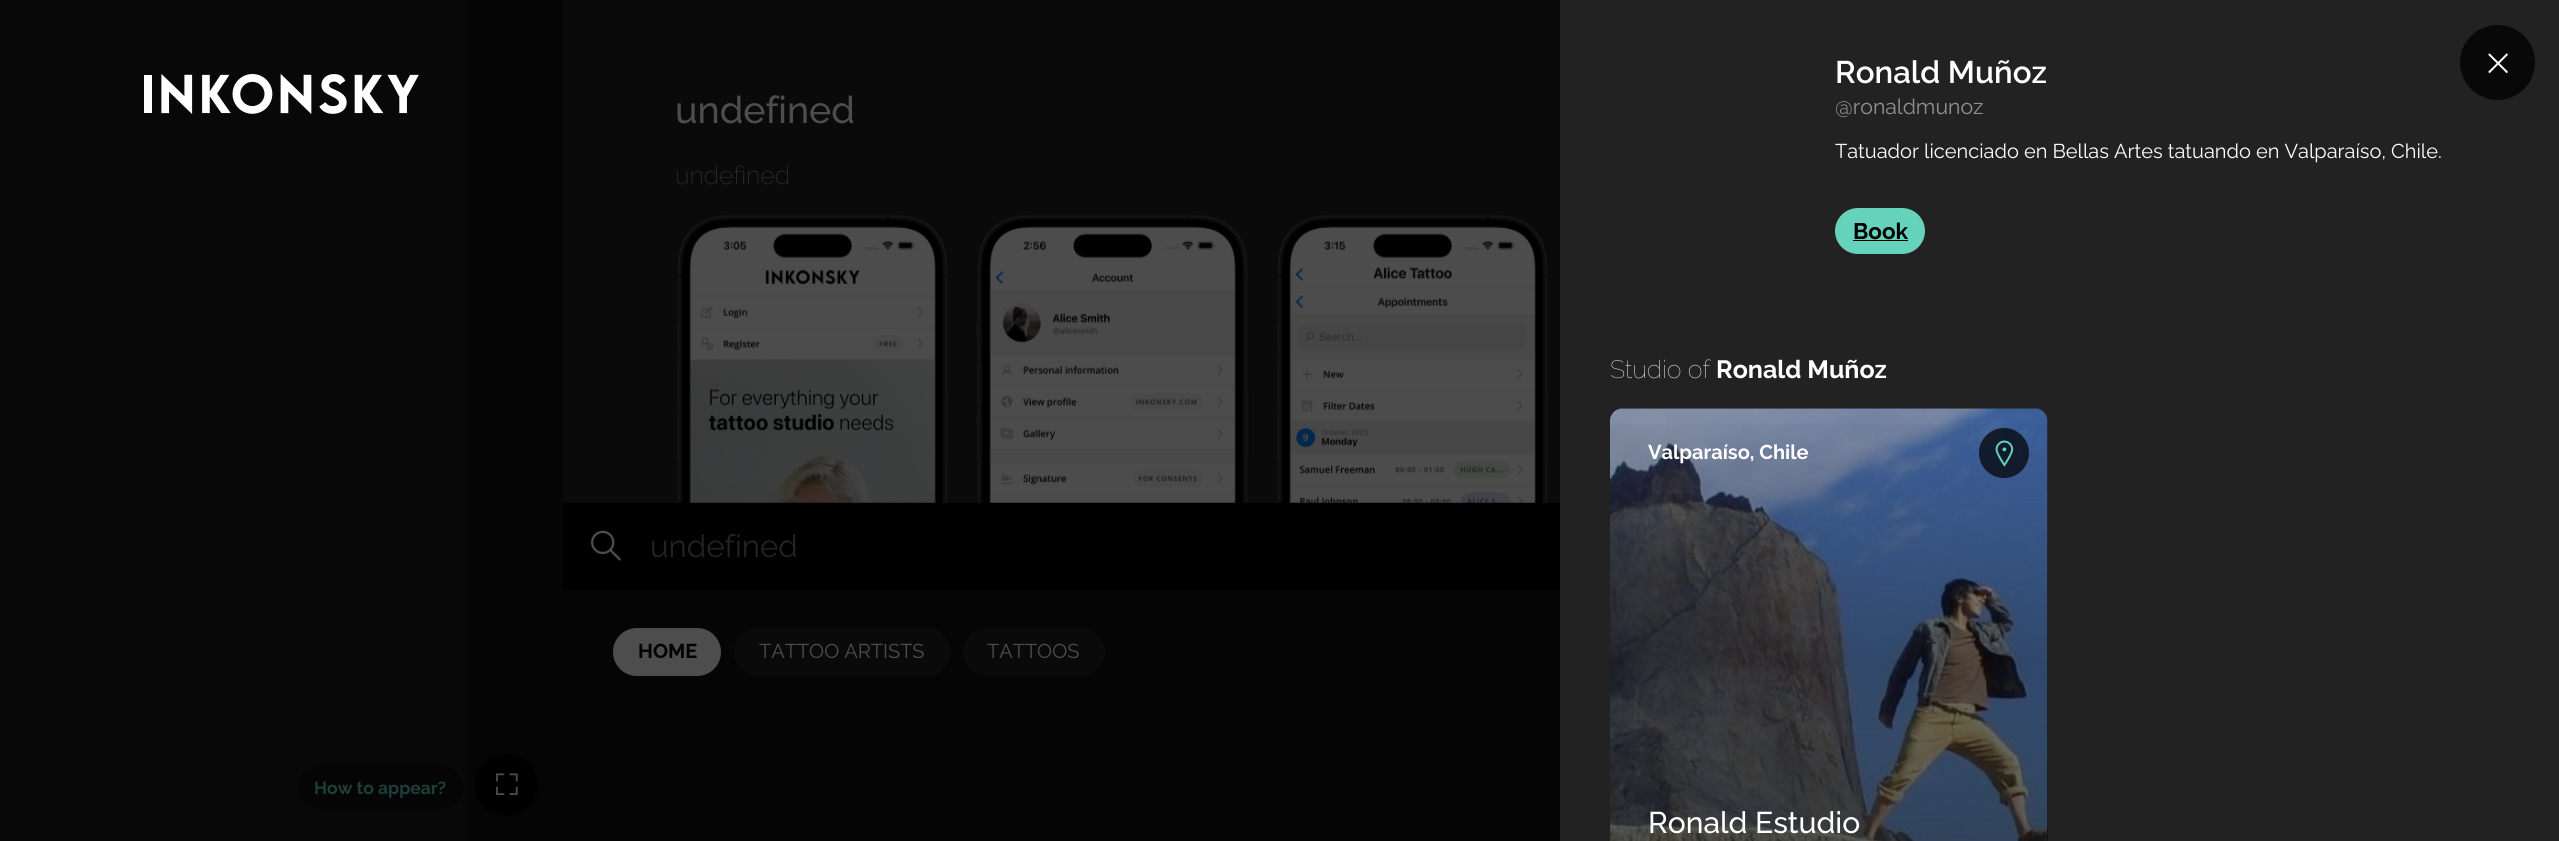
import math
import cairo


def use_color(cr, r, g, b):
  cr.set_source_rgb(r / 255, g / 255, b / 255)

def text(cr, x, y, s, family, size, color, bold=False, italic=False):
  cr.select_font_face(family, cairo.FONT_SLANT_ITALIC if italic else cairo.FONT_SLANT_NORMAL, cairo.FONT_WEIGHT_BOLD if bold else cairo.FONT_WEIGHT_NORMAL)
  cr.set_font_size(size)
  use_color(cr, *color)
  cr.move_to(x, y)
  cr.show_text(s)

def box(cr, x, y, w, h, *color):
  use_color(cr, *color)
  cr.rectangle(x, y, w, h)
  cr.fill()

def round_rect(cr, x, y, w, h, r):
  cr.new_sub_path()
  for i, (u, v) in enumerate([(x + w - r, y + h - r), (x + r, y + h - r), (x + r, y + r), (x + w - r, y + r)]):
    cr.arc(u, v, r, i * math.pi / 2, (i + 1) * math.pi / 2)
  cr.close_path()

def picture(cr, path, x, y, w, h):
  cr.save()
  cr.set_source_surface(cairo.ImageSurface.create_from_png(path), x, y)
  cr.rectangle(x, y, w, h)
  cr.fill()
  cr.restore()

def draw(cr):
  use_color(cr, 5, 5, 5)
  cr.paint()
  box(cr, 0, 0, 438, 841, 8, 8, 8)
  picture(cr, "img_01.png", 144, 74, 275, 40)
  box(cr, 563, 0, 997, 503, 10, 10, 10)
  picture(cr, "img_02.png", 676, 215, 273, 288)
  picture(cr, "img_03.png", 976, 215, 273, 288)
  picture(cr, "img_04.png", 1276, 215, 273, 288)
  box(cr, 1560, 0, 999, 841, 34, 34, 34)
  use_color(cr, 8, 8, 8)
  cr.arc(2497.5, 62.5, 37.5, 0, 2 * math.pi)
  cr.fill()
  picture(cr, "img_05.png", 2488, 53, 20, 21)
  use_color(cr, 101, 211, 187)
  round_rect(cr, 1835, 208, 90, 46, 23)
  cr.fill()
  box(cr, 1853, 240, 55, 1, 0, 0, 0)
  use_color(cr, 51, 51, 51)
  cr.new_path()
  cr.move_to(1623, 409)
  cr.line_to(2035, 409)
  cr.curve_to(2042, 409, 2048, 415, 2048, 422)
  cr.line_to(2048, 841)
  cr.line_to(1610, 841)
  cr.line_to(1610, 422)
  cr.curve_to(1610, 415, 1616, 409, 1623, 409)
  cr.close_path()
  cr.fill()
  picture(cr, "img_06.png", 1610, 408, 438, 433)
  gradient = cairo.LinearGradient(1829, 409, 1829, 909)
  gradient.add_color_stop_rgba(0, 0, 0, 0, 0)
  gradient.add_color_stop_rgba(1, 0, 0, 0, 0.7)
  cr.set_source(gradient)
  cr.rectangle(1610, 424, 438, 417)
  cr.fill()
  gradient = cairo.LinearGradient(1829, 409, 1829, 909)
  gradient.add_color_stop_rgba(0, 0, 0, 0, 0.35)
  gradient.add_color_stop_rgba(0.5, 0, 0, 0, 0.35)
  gradient.add_color_stop_rgba(1, 0, 0, 0, 0)
  cr.set_source(gradient)
  cr.new_path()
  cr.move_to(1623, 409)
  cr.line_to(2035, 409)
  cr.curve_to(2042, 409, 2048, 415, 2048, 422)
  cr.line_to(2048, 841)
  cr.line_to(1610, 841)
  cr.line_to(1610, 422)
  cr.curve_to(1610, 415, 1616, 409, 1623, 409)
  cr.close_path()
  cr.fill()
  cr.set_source_rgba(0, 0, 0, 0.7)
  cr.arc(2004, 453, 25, 0, 2 * math.pi)
  cr.fill()
  picture(cr, "img_07.png", 1995, 440, 19, 27)
  box(cr, 563, 503, 997, 87, 0, 0, 0)
  picture(cr, "img_08.png", 591, 530, 31, 31)
  use_color(cr, 77, 77, 77)
  round_rect(cr, 613, 628, 108, 48, 24)
  cr.fill()
  use_color(cr, 10, 10, 10)
  round_rect(cr, 734, 628, 216, 48, 24)
  cr.fill()
  round_rect(cr, 963, 628, 142, 48, 24)
  cr.fill()
  gradient = cairo.LinearGradient(438, 421, 563, 421)
  gradient.add_color_stop_rgba(0, 0.031, 0.031, 0.031, 1)
  gradient.add_color_stop_rgba(1, 0.024, 0.024, 0.024, 1)
  cr.set_source(gradient)
  cr.rectangle(438, 0, 31, 841)
  cr.fill()
  use_color(cr, 5, 5, 5)
  round_rect(cr, 298, 765, 165, 45, 22.5)
  cr.fill()
  use_color(cr, 0, 0, 0)
  round_rect(cr, 475, 754, 63, 62, 31)
  cr.fill()
  picture(cr, "img_09.png", 496, 773, 22, 22)
  text(cr, 675, 123, "undefined", "Raleway Medium", 37.5, (77, 77, 77))
  text(cr, 675, 184, "undefined", "Raleway ExtraLight", 25, (44, 44, 44))
  text(cr, 1835, 83, "Ronald Muñoz", "Raleway SemiBold", 31.25, (255, 255, 255))
  text(cr, 1835, 114, "@ronaldmunoz", "Raleway", 21.25, (145, 145, 145))
  text(cr, 1835, 158, "Tatuador licenciado en Bellas Artes tatuando en Valparaíso, Chile.", "Raleway", 20, (255, 255, 255))
  text(cr, 1853, 239, "Book", "Raleway", 22.5, (0, 0, 0), bold=True)
  text(cr, 1610, 378, "Studio of", "Raleway Thin", 25, (255, 255, 255))
  text(cr, 1716, 378, "Ronald Muñoz", "Raleway", 25, (255, 255, 255), bold=True)
  text(cr, 1648, 459, "Valparaíso, Chile", "Raleway", 20, (255, 255, 255), bold=True)
  text(cr, 1648, 833, "Ronald Estudio", "Raleway Medium", 30, (255, 255, 255))
  text(cr, 650, 557, "undefined", "Raleway", 31.25, (35, 35, 35))
  text(cr, 638, 658, "HOME", "Raleway", 20, (0, 0, 0), bold=True)
  text(cr, 759, 658, "TATTOO ARTISTS", "Raleway", 20, (77, 77, 77))
  text(cr, 987, 658, "TATTOOS", "Raleway", 20, (77, 77, 77))
  text(cr, 314, 794, "How to appear?", "Raleway", 17.5, (30, 63, 56), bold=True)


surface = cairo.ImageSurface(cairo.FORMAT_RGB24, 2559, 841)
cr = cairo.Context(surface)
options = cairo.FontOptions()
options.set_hint_metrics(cairo.HINT_METRICS_OFF)
options.set_hint_style(cairo.HINT_STYLE_NONE)
cr.set_font_options(options)
cr.set_miter_limit(4)
draw(cr)
surface.write_to_png("out.png")
